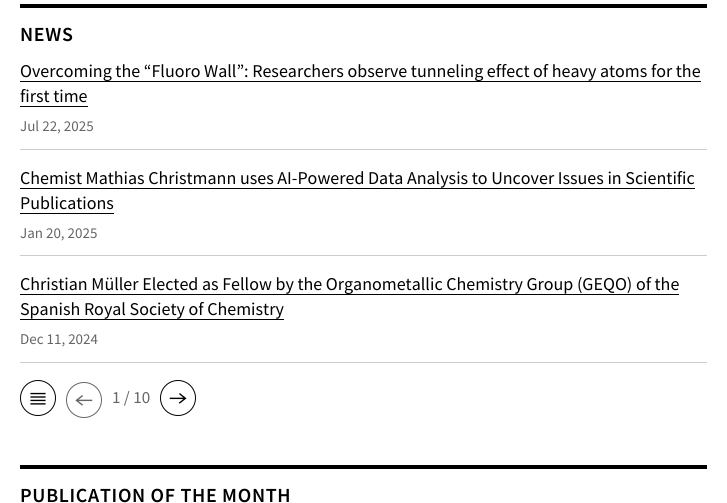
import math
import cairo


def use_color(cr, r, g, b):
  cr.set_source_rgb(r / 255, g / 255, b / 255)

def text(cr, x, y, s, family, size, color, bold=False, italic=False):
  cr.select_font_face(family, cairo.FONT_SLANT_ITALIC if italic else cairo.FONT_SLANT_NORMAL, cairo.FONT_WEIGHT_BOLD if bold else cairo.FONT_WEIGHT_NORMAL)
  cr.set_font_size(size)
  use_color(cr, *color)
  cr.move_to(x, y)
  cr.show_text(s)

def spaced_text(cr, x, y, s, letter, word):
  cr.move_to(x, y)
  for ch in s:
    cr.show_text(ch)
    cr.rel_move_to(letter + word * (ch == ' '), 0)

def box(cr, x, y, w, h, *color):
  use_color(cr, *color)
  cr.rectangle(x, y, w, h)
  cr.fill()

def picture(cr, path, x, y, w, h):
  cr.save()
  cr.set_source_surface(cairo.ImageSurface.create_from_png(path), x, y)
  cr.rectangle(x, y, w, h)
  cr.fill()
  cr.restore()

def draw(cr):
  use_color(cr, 255, 255, 255)
  cr.paint()
  box(cr, 20, 4, 687, 4, 0, 0, 0)
  box(cr, 20, 149, 687, 1, 204, 204, 204)
  box(cr, 20, 81, 681, 1, 0, 0, 0)
  box(cr, 20, 106, 68, 1, 0, 0, 0)
  box(cr, 20, 255, 687, 1, 204, 204, 204)
  box(cr, 20, 188, 675, 1, 0, 0, 0)
  box(cr, 20, 213, 94, 1, 0, 0, 0)
  box(cr, 20, 362, 687, 1, 204, 204, 204)
  box(cr, 20, 294, 659, 1, 0, 0, 0)
  box(cr, 20, 319, 264, 1, 0, 0, 0)
  cr.arc(38, 398, 17.5, 0, 2 * math.pi)
  cr.set_line_width(1)
  cr.stroke()
  picture(cr, "img_01.png", 30, 392, 16, 13)
  cr.arc(84, 400, 17.5, 0, 2 * math.pi)
  use_color(cr, 102, 102, 102)
  cr.stroke()
  picture(cr, "img_02.png", 75, 395, 18, 11)
  cr.arc(178, 398, 17.5, 0, 2 * math.pi)
  use_color(cr, 0, 0, 0)
  cr.stroke()
  picture(cr, "img_03.png", 169, 393, 18, 11)
  box(cr, 20, 465, 687, 4, 0, 0, 0)
  cr.select_font_face("Source Sans Pro SemiBold")
  cr.set_font_size(20)
  spaced_text(cr, 20, 41, "NEWS", 0.7, 0)
  text(cr, 20, 77, "Overcoming the “Fluoro Wall”: Researchers observe tunneling effect of heavy atoms for the", "Source Sans Pro", 18, (0, 0, 0))
  text(cr, 20, 102, "first time", "Source Sans Pro", 18, (0, 0, 0))
  text(cr, 20, 131, "Jul 22, 2025", "Source Sans Pro", 15, (102, 102, 102))
  text(cr, 20, 184, "Chemist Mathias Christmann uses AI-Powered Data Analysis to Uncover Issues in Scientific", "Source Sans Pro", 18, (0, 0, 0))
  text(cr, 20, 209, "Publications", "Source Sans Pro", 18, (0, 0, 0))
  text(cr, 20, 238, "Jan 20, 2025", "Source Sans Pro", 15, (102, 102, 102))
  text(cr, 20, 290, "Christian Müller Elected as Fellow by the Organometallic Chemistry Group (GEQO) of the", "Source Sans Pro", 18, (0, 0, 0))
  text(cr, 20, 315, "Spanish Royal Society of Chemistry", "Source Sans Pro", 18, (0, 0, 0))
  text(cr, 20, 344, "Dec 11, 2024", "Source Sans Pro", 15, (102, 102, 102))
  text(cr, 112, 403, "1 / 10", "Source Sans Pro", 17, (102, 102, 102))
  cr.select_font_face("Source Sans Pro SemiBold")
  cr.set_font_size(20)
  use_color(cr, 0, 0, 0)
  spaced_text(cr, 20, 502, "PUBLICATION OF THE MONTH", 0.7, 0)


surface = cairo.ImageSurface(cairo.FORMAT_RGB24, 727, 503)
cr = cairo.Context(surface)
options = cairo.FontOptions()
options.set_hint_metrics(cairo.HINT_METRICS_OFF)
options.set_hint_style(cairo.HINT_STYLE_NONE)
cr.set_font_options(options)
cr.set_miter_limit(4)
draw(cr)
surface.write_to_png("out.png")
